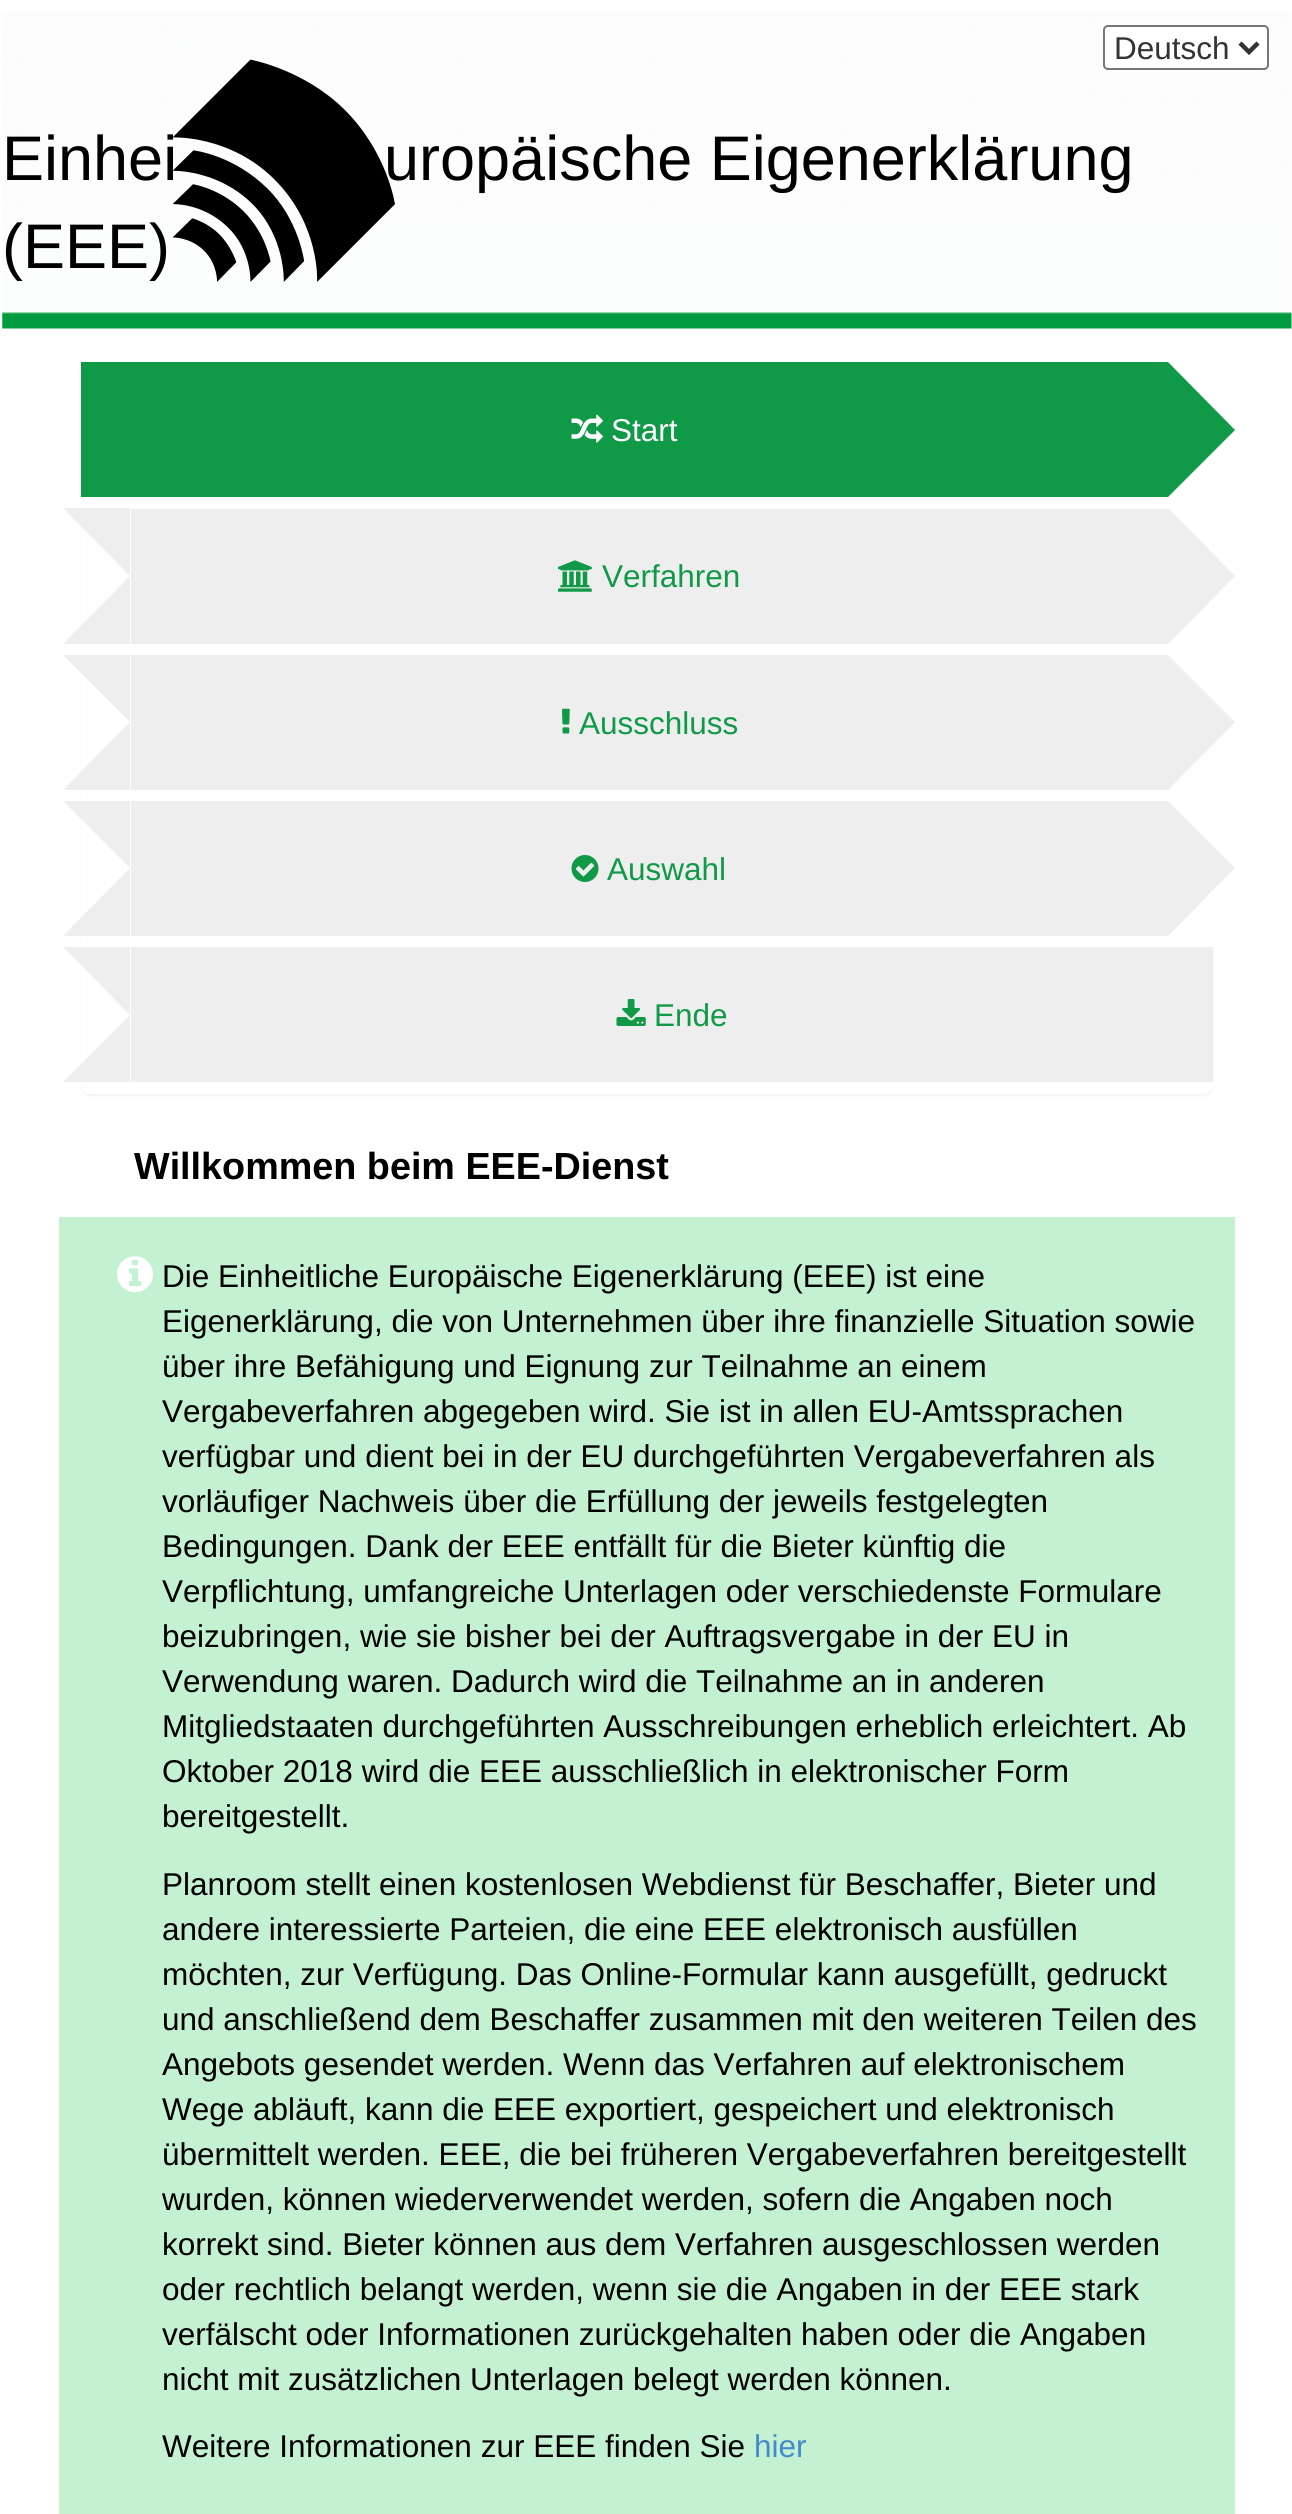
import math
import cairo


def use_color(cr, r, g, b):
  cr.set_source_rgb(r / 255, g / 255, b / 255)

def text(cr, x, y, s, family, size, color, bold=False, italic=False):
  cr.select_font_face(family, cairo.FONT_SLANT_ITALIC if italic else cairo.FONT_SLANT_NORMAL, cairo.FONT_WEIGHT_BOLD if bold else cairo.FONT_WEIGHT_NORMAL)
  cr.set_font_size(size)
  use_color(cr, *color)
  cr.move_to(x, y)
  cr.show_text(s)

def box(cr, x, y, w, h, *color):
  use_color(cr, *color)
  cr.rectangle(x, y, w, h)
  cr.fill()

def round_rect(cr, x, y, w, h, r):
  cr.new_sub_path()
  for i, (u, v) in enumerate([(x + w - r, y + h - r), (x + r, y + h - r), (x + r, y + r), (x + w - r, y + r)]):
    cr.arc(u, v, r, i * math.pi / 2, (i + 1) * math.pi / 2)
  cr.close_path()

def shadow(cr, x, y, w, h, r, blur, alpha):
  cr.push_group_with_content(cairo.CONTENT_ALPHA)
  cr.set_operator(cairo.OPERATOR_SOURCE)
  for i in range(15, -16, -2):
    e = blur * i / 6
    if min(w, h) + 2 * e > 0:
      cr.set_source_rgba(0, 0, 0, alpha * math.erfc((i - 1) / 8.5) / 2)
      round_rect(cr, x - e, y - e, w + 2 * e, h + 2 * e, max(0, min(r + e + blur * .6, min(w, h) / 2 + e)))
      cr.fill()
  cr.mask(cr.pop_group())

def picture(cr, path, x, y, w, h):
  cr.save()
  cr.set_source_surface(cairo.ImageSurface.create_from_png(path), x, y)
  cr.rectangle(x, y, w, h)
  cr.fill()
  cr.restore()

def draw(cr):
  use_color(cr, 255, 255, 255)
  cr.paint()
  picture(cr, "img_01.png", 2, 12, 1290, 317)
  use_color(cr, 255, 255, 255)
  round_rect(cr, 1104, 26, 164, 43, 4)
  cr.fill_preserve()
  use_color(cr, 118, 118, 118)
  cr.stroke()
  cr.new_path()
  cr.move_to(1240, 43)
  cr.line_to(1249, 52)
  cr.line_to(1258, 43)
  use_color(cr, 51, 51, 51)
  cr.set_line_width(4.5)
  cr.stroke()
  picture(cr, "img_02.png", 172, 59, 223, 223)
  use_color(cr, 0, 0, 0)
  shadow(cr, 81, 365, 1132, 731, 9, 1, 0.05)
  use_color(cr, 255, 255, 255)
  round_rect(cr, 81, 362, 1132, 732, 9)
  cr.fill()
  box(cr, 81, 362, 1087, 135, 16, 154, 72)
  picture(cr, "img_03.png", 571, 414, 32, 29)
  cr.new_path()
  cr.move_to(1168, 497)
  cr.line_to(1168, 362)
  cr.line_to(1235, 430)
  cr.close_path()
  cr.fill()
  use_color(cr, 238, 238, 238)
  cr.new_path()
  cr.move_to(63, 508)
  cr.line_to(130, 508)
  cr.line_to(130, 576)
  cr.close_path()
  cr.fill()
  cr.new_path()
  cr.move_to(130, 644)
  cr.line_to(63, 644)
  cr.line_to(130, 576)
  cr.close_path()
  cr.fill()
  box(cr, 131, 509, 1037, 135, 238, 238, 238)
  picture(cr, "img_04.png", 558, 560, 34, 32)
  cr.new_path()
  cr.move_to(1168, 644)
  cr.line_to(1168, 508)
  cr.line_to(1235, 576)
  cr.close_path()
  cr.fill()
  cr.new_path()
  cr.move_to(63, 655)
  cr.line_to(130, 655)
  cr.line_to(130, 722)
  cr.close_path()
  cr.fill()
  cr.new_path()
  cr.move_to(130, 790)
  cr.line_to(63, 790)
  cr.line_to(130, 722)
  cr.close_path()
  cr.fill()
  box(cr, 131, 655, 1037, 135, 238, 238, 238)
  picture(cr, "img_05.png", 562, 708, 8, 26)
  cr.new_path()
  cr.move_to(1168, 790)
  cr.line_to(1168, 655)
  cr.line_to(1235, 722)
  cr.close_path()
  cr.fill()
  cr.new_path()
  cr.move_to(63, 801)
  cr.line_to(130, 801)
  cr.line_to(130, 868)
  cr.close_path()
  cr.fill()
  cr.new_path()
  cr.move_to(130, 936)
  cr.line_to(63, 936)
  cr.line_to(130, 868)
  cr.close_path()
  cr.fill()
  box(cr, 131, 801, 1037, 135, 238, 238, 238)
  picture(cr, "img_06.png", 571, 855, 28, 27)
  cr.new_path()
  cr.move_to(1168, 936)
  cr.line_to(1168, 801)
  cr.line_to(1235, 868)
  cr.close_path()
  cr.fill()
  cr.new_path()
  cr.move_to(63, 947)
  cr.line_to(130, 947)
  cr.line_to(130, 1015)
  cr.close_path()
  cr.fill()
  cr.new_path()
  cr.move_to(130, 1082)
  cr.line_to(63, 1082)
  cr.line_to(130, 1015)
  cr.close_path()
  cr.fill()
  box(cr, 131, 947, 1082, 135, 238, 238, 238)
  picture(cr, "img_07.png", 616, 999, 30, 27)
  box(cr, 59, 1217, 1176, 1297, 196, 241, 210)
  picture(cr, "img_08.png", 117, 1256, 36, 37)
  text(cr, 1114, 59, "Deutsch", "Liberation Sans", 31.5, (51, 51, 51))
  text(cr, 2, 180, "Einhei", "Liberation Sans", 63, (0, 0, 0))
  text(cr, 384, 180, "uropäische Eigenerklärung", "Liberation Sans", 63, (0, 0, 0))
  text(cr, 2, 268, "(EEE)", "Liberation Sans", 63, (0, 0, 0))
  text(cr, 611, 441, "Start", "Liberation Sans", 31.5, (255, 255, 255))
  text(cr, 602, 587, "Verfahren", "Liberation Sans", 31.5, (16, 154, 72))
  text(cr, 579, 734, "Ausschluss", "Liberation Sans", 31.5, (16, 154, 72))
  text(cr, 607, 880, "Auswahl", "Liberation Sans", 31.5, (16, 154, 72))
  text(cr, 654, 1026, "Ende", "Liberation Sans", 31.5, (16, 154, 72))
  text(cr, 134, 1179, "Willkommen beim EEE-Dienst", "Liberation Sans", 37.75, (0, 0, 0), bold=True)
  text(cr, 162, 1287, "Die Einheitliche Europäische Eigenerklärung (EEE) ist eine", "Liberation Sans", 31.5, (0, 0, 0))
  text(cr, 162, 1332, "Eigenerklärung, die von Unternehmen über ihre finanzielle Situation sowie", "Liberation Sans", 31.5, (0, 0, 0))
  text(cr, 162, 1377, "über ihre Befähigung und Eignung zur Teilnahme an einem", "Liberation Sans", 31.5, (0, 0, 0))
  text(cr, 162, 1422, "Vergabeverfahren abgegeben wird. Sie ist in allen EU-Amtssprachen", "Liberation Sans", 31.5, (0, 0, 0))
  text(cr, 162, 1467, "verfügbar und dient bei in der EU durchgeführten Vergabeverfahren als", "Liberation Sans", 31.5, (0, 0, 0))
  text(cr, 162, 1512, "vorläufiger Nachweis über die Erfüllung der jeweils festgelegten", "Liberation Sans", 31.5, (0, 0, 0))
  text(cr, 162, 1557, "Bedingungen. Dank der EEE entfällt für die Bieter künftig die", "Liberation Sans", 31.5, (0, 0, 0))
  text(cr, 162, 1602, "Verpflichtung, umfangreiche Unterlagen oder verschiedenste Formulare", "Liberation Sans", 31.5, (0, 0, 0))
  text(cr, 162, 1647, "beizubringen, wie sie bisher bei der Auftragsvergabe in der EU in", "Liberation Sans", 31.5, (0, 0, 0))
  text(cr, 162, 1692, "Verwendung waren. Dadurch wird die Teilnahme an in anderen", "Liberation Sans", 31.5, (0, 0, 0))
  text(cr, 162, 1737, "Mitgliedstaaten durchgeführten Ausschreibungen erheblich erleichtert. Ab", "Liberation Sans", 31.5, (0, 0, 0))
  text(cr, 162, 1782, "Oktober 2018 wird die EEE ausschließlich in elektronischer Form", "Liberation Sans", 31.5, (0, 0, 0))
  text(cr, 162, 1827, "bereitgestellt.", "Liberation Sans", 31.5, (0, 0, 0))
  text(cr, 162, 1895, "Planroom stellt einen kostenlosen Webdienst für Beschaffer, Bieter und", "Liberation Sans", 31.5, (0, 0, 0))
  text(cr, 162, 1940, "andere interessierte Parteien, die eine EEE elektronisch ausfüllen", "Liberation Sans", 31.5, (0, 0, 0))
  text(cr, 162, 1985, "möchten, zur Verfügung. Das Online-Formular kann ausgefüllt, gedruckt", "Liberation Sans", 31.5, (0, 0, 0))
  text(cr, 162, 2030, "und anschließend dem Beschaffer zusammen mit den weiteren Teilen des", "Liberation Sans", 31.5, (0, 0, 0))
  text(cr, 162, 2075, "Angebots gesendet werden. Wenn das Verfahren auf elektronischem", "Liberation Sans", 31.5, (0, 0, 0))
  text(cr, 162, 2120, "Wege abläuft, kann die EEE exportiert, gespeichert und elektronisch", "Liberation Sans", 31.5, (0, 0, 0))
  text(cr, 162, 2165, "übermittelt werden. EEE, die bei früheren Vergabeverfahren bereitgestellt", "Liberation Sans", 31.5, (0, 0, 0))
  text(cr, 162, 2210, "wurden, können wiederverwendet werden, sofern die Angaben noch", "Liberation Sans", 31.5, (0, 0, 0))
  text(cr, 162, 2255, "korrekt sind. Bieter können aus dem Verfahren ausgeschlossen werden", "Liberation Sans", 31.5, (0, 0, 0))
  text(cr, 162, 2300, "oder rechtlich belangt werden, wenn sie die Angaben in der EEE stark", "Liberation Sans", 31.5, (0, 0, 0))
  text(cr, 162, 2345, "verfälscht oder Informationen zurückgehalten haben oder die Angaben", "Liberation Sans", 31.5, (0, 0, 0))
  text(cr, 162, 2390, "nicht mit zusätzlichen Unterlagen belegt werden können.", "Liberation Sans", 31.5, (0, 0, 0))
  text(cr, 162, 2457, "Weitere Informationen zur EEE finden Sie", "Liberation Sans", 31.5, (0, 0, 0))
  text(cr, 754, 2457, "hier", "Liberation Sans", 31.5, (66, 139, 202))


surface = cairo.ImageSurface(cairo.FORMAT_RGB24, 1292, 2514)
cr = cairo.Context(surface)
options = cairo.FontOptions()
options.set_hint_metrics(cairo.HINT_METRICS_OFF)
options.set_hint_style(cairo.HINT_STYLE_NONE)
cr.set_font_options(options)
cr.set_miter_limit(4)
draw(cr)
surface.write_to_png("out.png")
